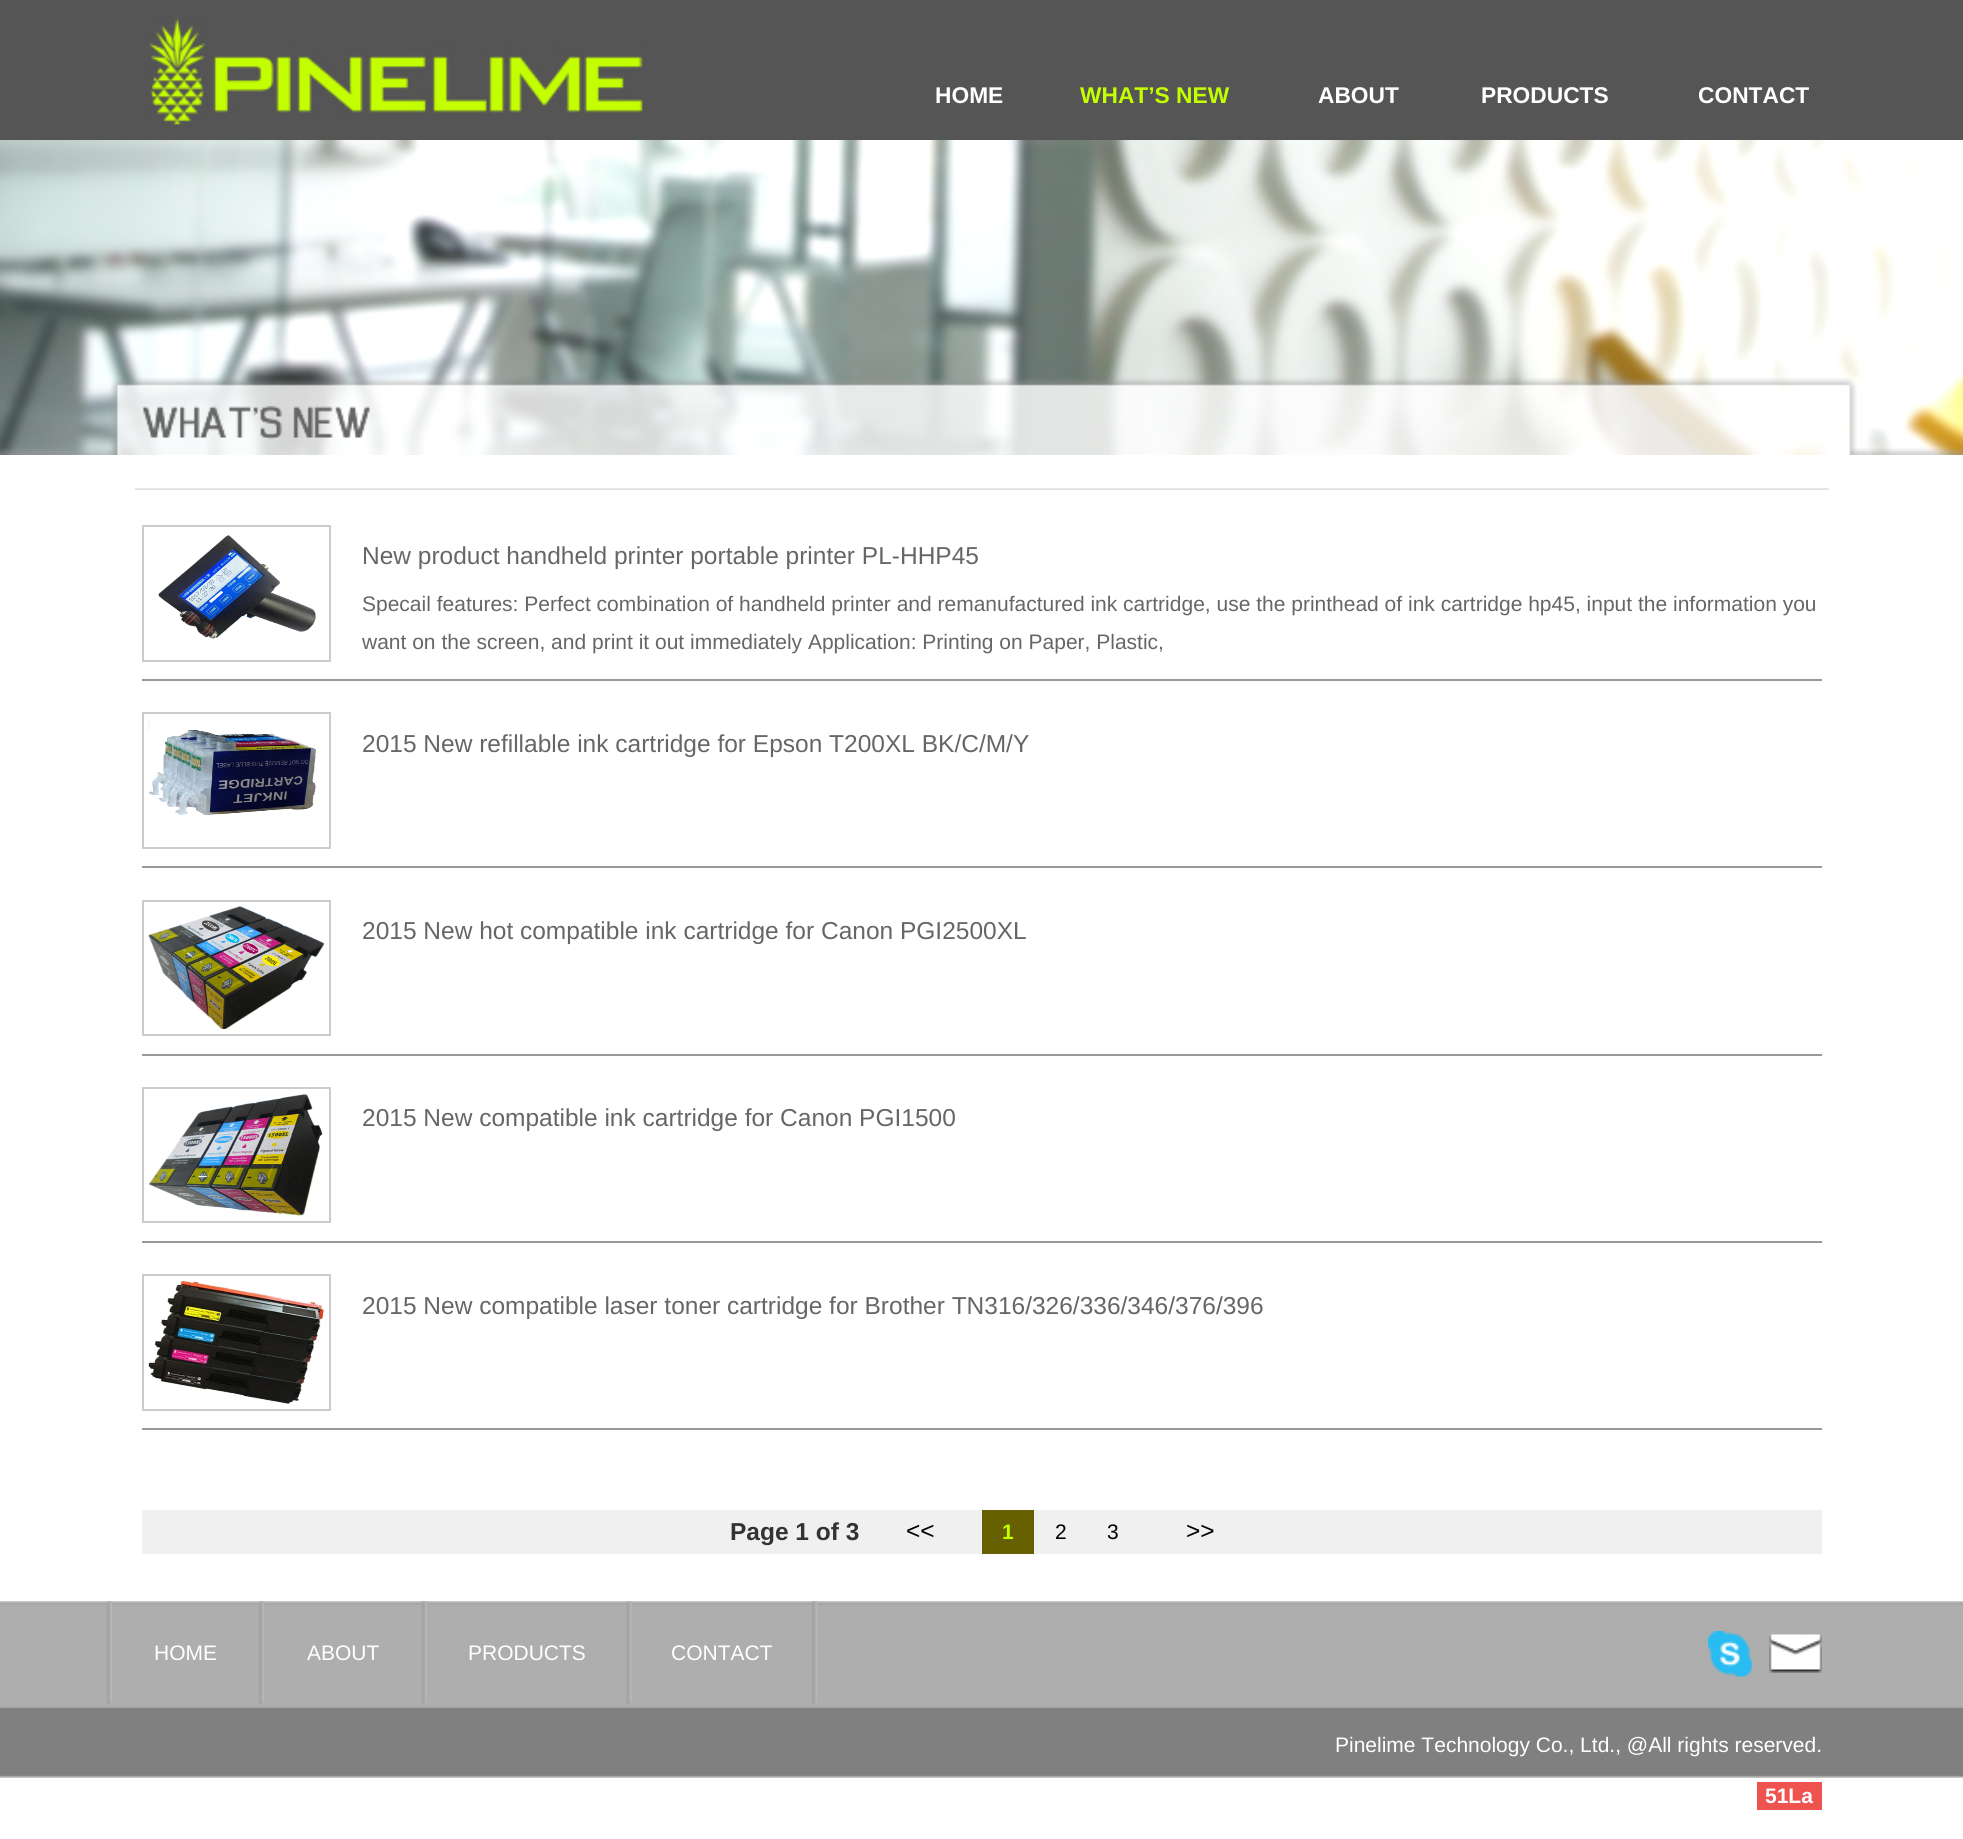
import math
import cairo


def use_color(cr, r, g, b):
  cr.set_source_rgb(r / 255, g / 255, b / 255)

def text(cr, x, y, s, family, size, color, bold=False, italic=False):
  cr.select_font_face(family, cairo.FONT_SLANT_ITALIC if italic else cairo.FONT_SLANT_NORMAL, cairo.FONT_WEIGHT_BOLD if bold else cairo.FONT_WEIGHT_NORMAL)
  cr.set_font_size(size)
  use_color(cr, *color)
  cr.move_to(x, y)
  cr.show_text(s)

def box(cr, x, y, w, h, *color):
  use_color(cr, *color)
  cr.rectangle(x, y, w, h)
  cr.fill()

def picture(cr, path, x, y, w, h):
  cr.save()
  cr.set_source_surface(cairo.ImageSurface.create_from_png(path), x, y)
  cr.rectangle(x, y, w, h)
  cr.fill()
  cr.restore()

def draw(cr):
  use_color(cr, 255, 255, 255)
  cr.paint()
  box(cr, 0, 0, 1963, 140, 85, 85, 85)
  picture(cr, "img_01.png", 148, 18, 495, 107)
  picture(cr, "img_02.png", 0, 140, 1963, 315)
  picture(cr, "img_03.png", 142, 406, 229, 34)
  picture(cr, "img_04.png", 134, 488, 1695, 2)
  box(cr, 142, 679, 1680, 2, 153, 153, 153)
  cr.rectangle(143, 526, 187, 135)
  use_color(cr, 204, 204, 204)
  cr.stroke()
  picture(cr, "img_05.png", 158, 535, 158, 104)
  box(cr, 142, 866, 1680, 2, 153, 153, 153)
  cr.rectangle(143, 713, 187, 135)
  use_color(cr, 204, 204, 204)
  cr.stroke()
  picture(cr, "img_06.png", 148, 719, 176, 98)
  box(cr, 142, 1054, 1680, 2, 153, 153, 153)
  cr.rectangle(143, 901, 187, 134)
  use_color(cr, 204, 204, 204)
  cr.stroke()
  picture(cr, "img_07.png", 148, 906, 176, 123)
  box(cr, 142, 1241, 1680, 2, 153, 153, 153)
  cr.rectangle(143, 1088, 187, 134)
  use_color(cr, 204, 204, 204)
  cr.stroke()
  picture(cr, "img_08.png", 148, 1093, 175, 123)
  box(cr, 142, 1428, 1680, 2, 153, 153, 153)
  cr.rectangle(143, 1275, 187, 135)
  use_color(cr, 204, 204, 204)
  cr.stroke()
  picture(cr, "img_09.png", 148, 1281, 176, 123)
  box(cr, 142, 1510, 1680, 44, 240, 240, 240)
  box(cr, 982, 1510, 52, 44, 102, 96, 0)
  picture(cr, "img_10.png", 0, 1601, 1963, 107)
  picture(cr, "img_11.png", 106, 1601, 6, 104)
  picture(cr, "img_12.png", 259, 1601, 6, 104)
  picture(cr, "img_13.png", 421, 1601, 6, 104)
  picture(cr, "img_14.png", 626, 1601, 6, 104)
  picture(cr, "img_15.png", 812, 1601, 6, 104)
  picture(cr, "img_16.png", 1708, 1631, 44, 46)
  picture(cr, "img_17.png", 1769, 1634, 53, 39)
  picture(cr, "img_18.png", 0, 1708, 1963, 70)
  box(cr, 1757, 1782, 65, 28, 239, 83, 80)
  text(cr, 935, 103, "HOME", "Liberation Sans", 22.75, (255, 255, 255), bold=True)
  text(cr, 1080, 103, "WHAT’S NEW", "Liberation Sans", 22.75, (196, 255, 0), bold=True)
  text(cr, 1318, 103, "ABOUT", "Liberation Sans", 22.75, (255, 255, 255), bold=True)
  text(cr, 1481, 103, "PRODUCTS", "Liberation Sans", 22.75, (255, 255, 255), bold=True)
  text(cr, 1698, 103, "CONTACT", "Liberation Sans", 22.75, (255, 255, 255), bold=True)
  text(cr, 362, 564, "New product handheld printer portable printer PL-HHP45", "Liberation Sans", 24.5, (102, 102, 102))
  text(cr, 362, 611, "Specail features: Perfect combination of handheld printer and remanufactured ink cartridge, use the printhead of ink cartridge hp45, input the information you", "Liberation Sans", 21, (102, 102, 102))
  text(cr, 362, 649, "want on the screen, and print it out immediately Application: Printing on Paper, Plastic,", "Liberation Sans", 21, (102, 102, 102))
  text(cr, 362, 752, "2015 New refillable ink cartridge for Epson T200XL BK/C/M/Y", "Liberation Sans", 24.5, (102, 102, 102))
  text(cr, 362, 939, "2015 New hot compatible ink cartridge for Canon PGI2500XL", "Liberation Sans", 24.5, (102, 102, 102))
  text(cr, 362, 1126, "2015 New compatible ink cartridge for Canon PGI1500", "Liberation Sans", 24.5, (102, 102, 102))
  text(cr, 362, 1314, "2015 New compatible laser toner cartridge for Brother TN316/326/336/346/376/396", "Liberation Sans", 24.5, (102, 102, 102))
  text(cr, 730, 1540, "Page 1 of 3", "Liberation Sans", 24.5, (51, 51, 51), bold=True)
  text(cr, 906, 1539, "<<", "Liberation Sans", 24.5, (0, 0, 0))
  text(cr, 1002, 1539, "1", "Liberation Sans", 21, (196, 255, 0), bold=True)
  text(cr, 1055, 1539, "2", "Liberation Sans", 21, (0, 0, 0))
  text(cr, 1107, 1539, "3", "Liberation Sans", 21, (0, 0, 0))
  text(cr, 1186, 1539, ">>", "Liberation Sans", 24.5, (0, 0, 0))
  text(cr, 154, 1660, "HOME", "Liberation Sans", 21, (255, 255, 255))
  text(cr, 307, 1660, "ABOUT", "Liberation Sans", 21, (255, 255, 255))
  text(cr, 468, 1660, "PRODUCTS", "Liberation Sans", 21, (255, 255, 255))
  text(cr, 671, 1660, "CONTACT", "Liberation Sans", 21, (255, 255, 255))
  text(cr, 1335, 1752, "Pinelime Technology Co., Ltd., @All rights reserved.", "Liberation Sans", 21, (255, 255, 255))
  text(cr, 1765, 1803, "51La", "Liberation Sans", 21, (255, 255, 255), bold=True)


surface = cairo.ImageSurface(cairo.FORMAT_RGB24, 1963, 1839)
cr = cairo.Context(surface)
options = cairo.FontOptions()
options.set_hint_metrics(cairo.HINT_METRICS_OFF)
options.set_hint_style(cairo.HINT_STYLE_NONE)
cr.set_font_options(options)
cr.set_miter_limit(4)
draw(cr)
surface.write_to_png("out.png")
